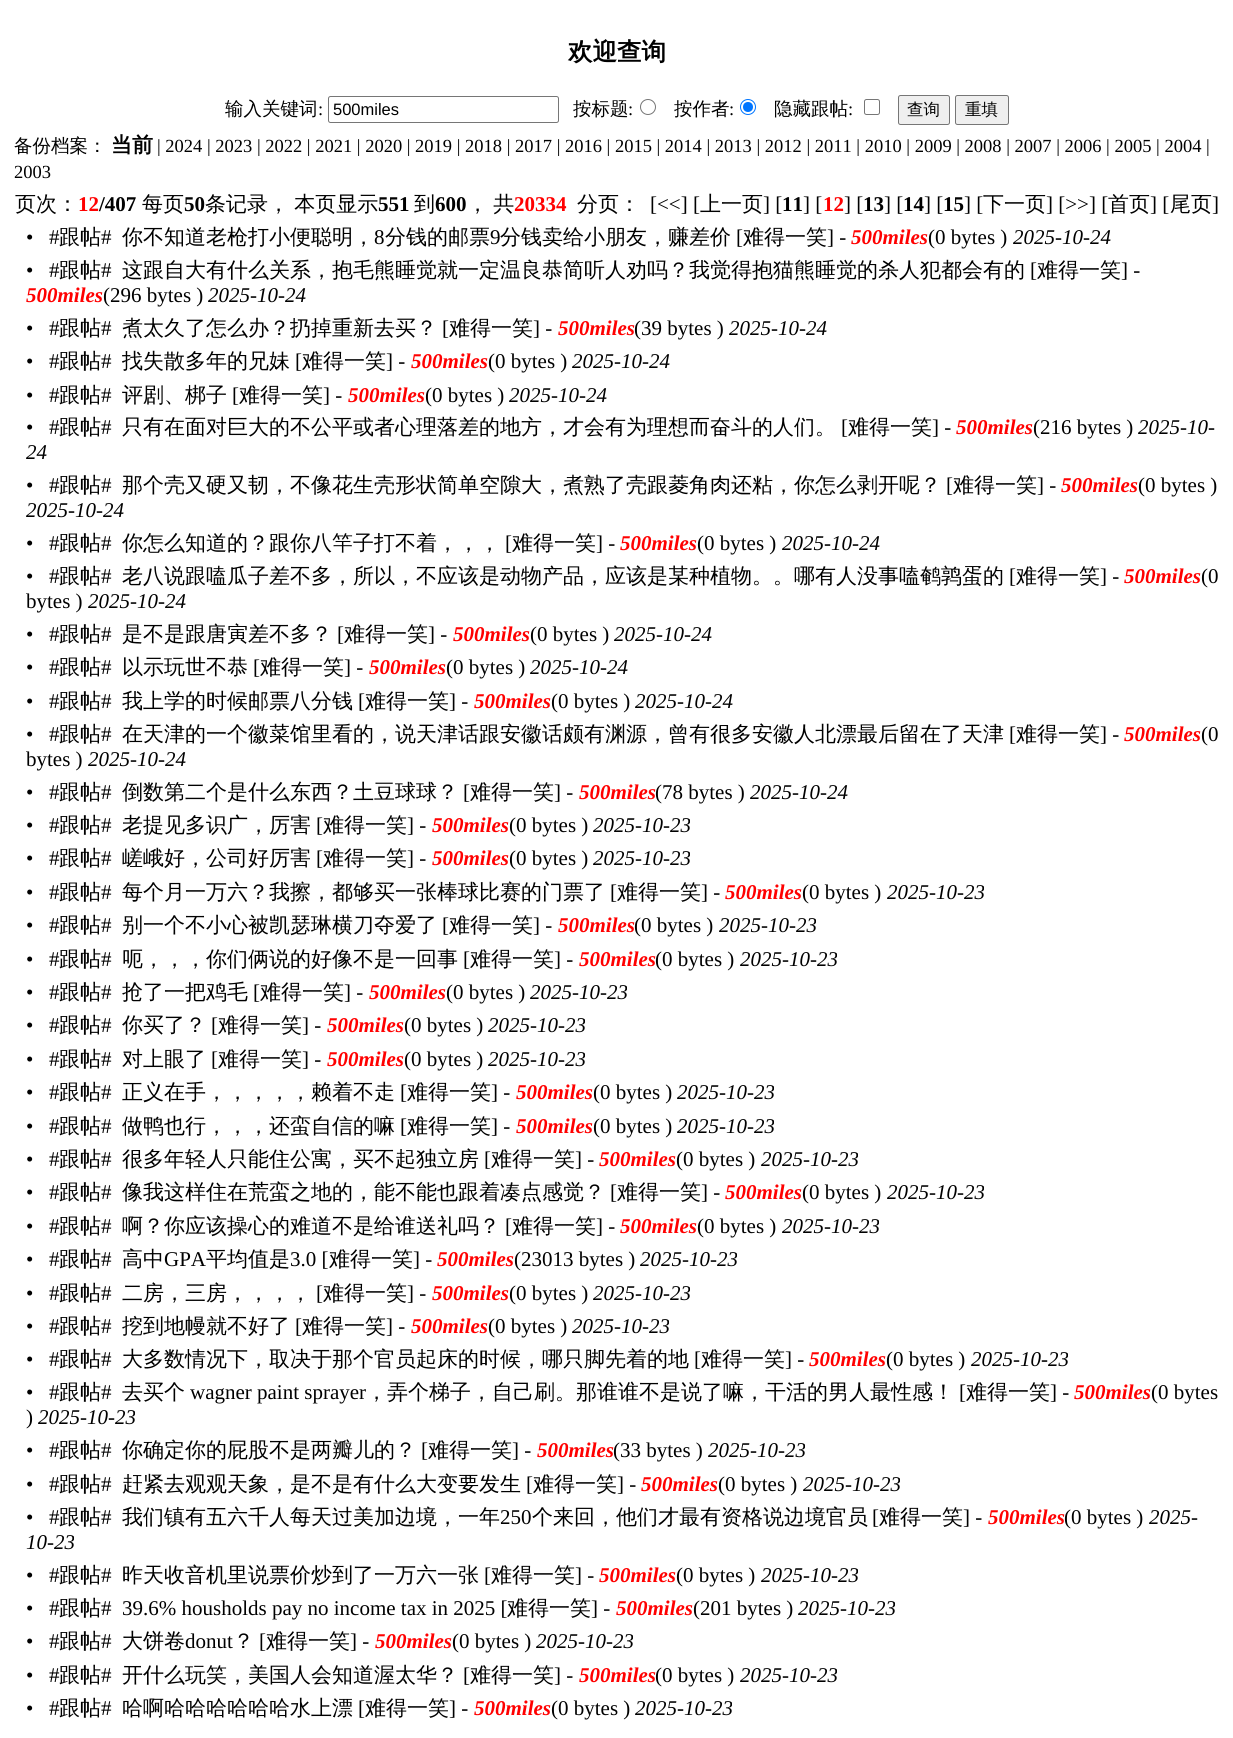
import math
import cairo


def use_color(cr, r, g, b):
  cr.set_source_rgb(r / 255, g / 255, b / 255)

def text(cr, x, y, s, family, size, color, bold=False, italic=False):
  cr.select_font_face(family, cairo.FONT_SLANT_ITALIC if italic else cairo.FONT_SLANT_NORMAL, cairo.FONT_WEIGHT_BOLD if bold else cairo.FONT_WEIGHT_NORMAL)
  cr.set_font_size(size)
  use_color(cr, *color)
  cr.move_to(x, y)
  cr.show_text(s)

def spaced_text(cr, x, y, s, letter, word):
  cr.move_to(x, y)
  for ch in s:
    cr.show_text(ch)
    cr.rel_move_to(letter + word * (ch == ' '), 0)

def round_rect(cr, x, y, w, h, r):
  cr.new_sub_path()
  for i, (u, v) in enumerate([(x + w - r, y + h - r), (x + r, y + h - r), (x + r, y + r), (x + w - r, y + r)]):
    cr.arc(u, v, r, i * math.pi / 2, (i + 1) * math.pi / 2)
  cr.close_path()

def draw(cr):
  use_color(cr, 255, 255, 255)
  cr.paint()
  round_rect(cr, 328.5, 96.5, 230, 26, 2)
  use_color(cr, 118, 118, 118)
  cr.set_line_width(1)
  cr.stroke()
  cr.arc(648, 107, 7.5, 0, 2 * math.pi)
  cr.stroke()
  cr.arc(748, 107, 7.5, 0, 2 * math.pi)
  use_color(cr, 0, 117, 255)
  cr.stroke()
  cr.arc(748, 107, 5, 0, 2 * math.pi)
  cr.fill()
  round_rect(cr, 864.5, 99.5, 15, 15, 2)
  use_color(cr, 118, 118, 118)
  cr.stroke()
  use_color(cr, 239, 239, 239)
  round_rect(cr, 898.5, 95.5, 51, 29, 2)
  cr.fill_preserve()
  use_color(cr, 118, 118, 118)
  cr.stroke()
  use_color(cr, 239, 239, 239)
  round_rect(cr, 955.5, 95.5, 53, 29, 2)
  cr.fill_preserve()
  use_color(cr, 118, 118, 118)
  cr.stroke()
  text(cr, 568, 60, "欢迎查询", "WenQuanYi Zen Hei", 24.5, (0, 0, 0), bold=True)
  text(cr, 225, 115, "输入关键词", "WenQuanYi Zen Hei Medium", 18.5, (0, 0, 0))
  text(cr, 318, 115, ":", "Liberation Serif", 18.5, (0, 0, 0))
  text(cr, 333, 115, "500miles", "Liberation Sans", 16.5, (0, 0, 0))
  text(cr, 573, 115, "按标题", "WenQuanYi Zen Hei Medium", 18.5, (0, 0, 0))
  text(cr, 628, 115, ":", "Liberation Serif", 18.5, (0, 0, 0))
  text(cr, 674, 115, "按作者", "WenQuanYi Zen Hei Medium", 18.5, (0, 0, 0))
  text(cr, 729, 115, ":", "Liberation Serif", 18.5, (0, 0, 0))
  text(cr, 774, 115, "隐藏跟帖", "WenQuanYi Zen Hei Medium", 18.5, (0, 0, 0))
  text(cr, 848, 115, ":", "Liberation Serif", 18.5, (0, 0, 0))
  text(cr, 907, 115, "查询", "WenQuanYi Zen Hei Medium", 16.5, (0, 0, 0))
  text(cr, 965, 115, "重填", "WenQuanYi Zen Hei Medium", 16.5, (0, 0, 0))
  text(cr, 14, 152, "备份档案：", "WenQuanYi Zen Hei Medium", 18.5, (0, 0, 0))
  text(cr, 111, 152, "当前", "WenQuanYi Zen Hei", 21, (0, 0, 0), bold=True)
  text(cr, 157, 152, "| 2024 | 2023 | 2022 | 2021 | 2020 | 2019 | 2018 | 2017 | 2016 | 2015 | 2014 | 2013 | 2012 | 2011 | 2010 | 2009 | 2008 | 2007 | 2006 | 2005 | 2004 |", "Liberation Serif", 18.5, (0, 0, 0))
  text(cr, 14, 178, "2003", "Liberation Serif", 18.5, (0, 0, 0))
  text(cr, 15, 211, "页次：", "WenQuanYi Zen Hei Medium", 21, (0, 0, 0))
  text(cr, 78, 211, "12", "Liberation Serif", 21, (255, 0, 0), bold=True)
  text(cr, 99, 211, "/407", "Liberation Serif", 21, (0, 0, 0), bold=True)
  text(cr, 142, 211, "每页", "WenQuanYi Zen Hei Medium", 21, (0, 0, 0))
  text(cr, 184, 211, "50", "Liberation Serif", 21, (0, 0, 0), bold=True)
  cr.select_font_face("WenQuanYi Zen Hei Medium")
  spaced_text(cr, 205, 211, "条记录， 本页显示", 0, -1)
  text(cr, 378, 211, "551", "Liberation Serif", 21, (0, 0, 0), bold=True)
  text(cr, 414, 211, "到", "WenQuanYi Zen Hei Medium", 21, (0, 0, 0))
  text(cr, 435, 211, "600", "Liberation Serif", 21, (0, 0, 0), bold=True)
  cr.select_font_face("WenQuanYi Zen Hei Medium")
  spaced_text(cr, 467, 211, "， 共", 0, -1)
  text(cr, 514, 211, "20334", "Liberation Serif", 21, (255, 0, 0), bold=True)
  text(cr, 577, 211, "分页：", "WenQuanYi Zen Hei Medium", 21, (0, 0, 0))
  text(cr, 650, 211, "[<<] [", "Liberation Serif", 21, (0, 0, 0))
  text(cr, 700, 211, "上一页", "WenQuanYi Zen Hei Medium", 21, (0, 0, 0))
  text(cr, 763, 211, "] [", "Liberation Serif", 21, (0, 0, 0))
  text(cr, 782, 211, "11", "Liberation Serif", 21, (0, 0, 0), bold=True)
  text(cr, 803, 211, "] [", "Liberation Serif", 21, (0, 0, 0))
  text(cr, 823, 211, "12", "Liberation Serif", 21, (255, 0, 0), bold=True)
  text(cr, 844, 211, "] [", "Liberation Serif", 21, (0, 0, 0))
  text(cr, 863, 211, "13", "Liberation Serif", 21, (0, 0, 0), bold=True)
  text(cr, 884, 211, "] [", "Liberation Serif", 21, (0, 0, 0))
  text(cr, 903, 211, "14", "Liberation Serif", 21, (0, 0, 0), bold=True)
  text(cr, 924, 211, "] [", "Liberation Serif", 21, (0, 0, 0))
  text(cr, 943, 211, "15", "Liberation Serif", 21, (0, 0, 0), bold=True)
  text(cr, 964, 211, "] [", "Liberation Serif", 21, (0, 0, 0))
  text(cr, 983, 211, "下一页", "WenQuanYi Zen Hei Medium", 21, (0, 0, 0))
  text(cr, 1046, 211, "] [>>] [", "Liberation Serif", 21, (0, 0, 0))
  text(cr, 1108, 211, "首页", "WenQuanYi Zen Hei Medium", 21, (0, 0, 0))
  text(cr, 1150, 211, "] [", "Liberation Serif", 21, (0, 0, 0))
  text(cr, 1170, 211, "尾页", "WenQuanYi Zen Hei Medium", 21, (0, 0, 0))
  text(cr, 1212, 211, "]", "Liberation Serif", 21, (0, 0, 0))
  text(cr, 26, 244, "•", "Liberation Serif", 21, (0, 0, 0))
  text(cr, 49, 244, "#", "Liberation Serif", 21, (0, 0, 0))
  text(cr, 59, 244, "跟帖", "WenQuanYi Zen Hei Medium", 21, (0, 0, 0))
  text(cr, 101, 244, "#", "Liberation Serif", 21, (0, 0, 0))
  text(cr, 122, 244, "你不知道老枪打小便聪明，", "WenQuanYi Zen Hei Medium", 21, (0, 0, 0))
  text(cr, 374, 244, "8", "Liberation Serif", 21, (0, 0, 0))
  text(cr, 385, 244, "分钱的邮票", "WenQuanYi Zen Hei Medium", 21, (0, 0, 0))
  text(cr, 490, 244, "9", "Liberation Serif", 21, (0, 0, 0))
  text(cr, 500, 244, "分钱卖给小朋友，赚差价", "WenQuanYi Zen Hei Medium", 21, (0, 0, 0))
  text(cr, 736, 244, "[", "Liberation Serif", 21, (0, 0, 0))
  text(cr, 743, 244, "难得一笑", "WenQuanYi Zen Hei Medium", 21, (0, 0, 0))
  text(cr, 827, 244, "] -", "Liberation Serif", 21, (0, 0, 0))
  text(cr, 851, 244, "500miles", "Liberation Serif", 21, (255, 0, 0), bold=True, italic=True)
  text(cr, 928, 244, "(0 bytes )", "Liberation Serif", 21, (0, 0, 0))
  text(cr, 1013, 244, "2025-10-24", "Liberation Serif", 21, (0, 0, 0), italic=True)
  text(cr, 26, 277, "•", "Liberation Serif", 21, (0, 0, 0))
  text(cr, 49, 277, "#", "Liberation Serif", 21, (0, 0, 0))
  text(cr, 59, 277, "跟帖", "WenQuanYi Zen Hei Medium", 21, (0, 0, 0))
  text(cr, 101, 277, "#", "Liberation Serif", 21, (0, 0, 0))
  text(cr, 122, 277, "这跟自大有什么关系，抱毛熊睡觉就一定温良恭简听人劝吗？我觉得抱猫熊睡觉的杀人犯都会有的", "WenQuanYi Zen Hei Medium", 21, (0, 0, 0))
  text(cr, 1030, 277, "[", "Liberation Serif", 21, (0, 0, 0))
  text(cr, 1037, 277, "难得一笑", "WenQuanYi Zen Hei Medium", 21, (0, 0, 0))
  text(cr, 1121, 277, "] -", "Liberation Serif", 21, (0, 0, 0))
  text(cr, 26, 302, "500miles", "Liberation Serif", 21, (255, 0, 0), bold=True, italic=True)
  text(cr, 103, 302, "(296 bytes )", "Liberation Serif", 21, (0, 0, 0))
  text(cr, 208, 302, "2025-10-24", "Liberation Serif", 21, (0, 0, 0), italic=True)
  text(cr, 26, 335, "•", "Liberation Serif", 21, (0, 0, 0))
  text(cr, 49, 335, "#", "Liberation Serif", 21, (0, 0, 0))
  text(cr, 59, 335, "跟帖", "WenQuanYi Zen Hei Medium", 21, (0, 0, 0))
  text(cr, 101, 335, "#", "Liberation Serif", 21, (0, 0, 0))
  text(cr, 122, 335, "煮太久了怎么办？扔掉重新去买？", "WenQuanYi Zen Hei Medium", 21, (0, 0, 0))
  text(cr, 442, 335, "[", "Liberation Serif", 21, (0, 0, 0))
  text(cr, 449, 335, "难得一笑", "WenQuanYi Zen Hei Medium", 21, (0, 0, 0))
  text(cr, 533, 335, "] -", "Liberation Serif", 21, (0, 0, 0))
  text(cr, 558, 335, "500miles", "Liberation Serif", 21, (255, 0, 0), bold=True, italic=True)
  text(cr, 634, 335, "(39 bytes )", "Liberation Serif", 21, (0, 0, 0))
  text(cr, 729, 335, "2025-10-24", "Liberation Serif", 21, (0, 0, 0), italic=True)
  text(cr, 26, 368, "•", "Liberation Serif", 21, (0, 0, 0))
  text(cr, 49, 368, "#", "Liberation Serif", 21, (0, 0, 0))
  text(cr, 59, 368, "跟帖", "WenQuanYi Zen Hei Medium", 21, (0, 0, 0))
  text(cr, 101, 368, "#", "Liberation Serif", 21, (0, 0, 0))
  text(cr, 122, 368, "找失散多年的兄妹", "WenQuanYi Zen Hei Medium", 21, (0, 0, 0))
  text(cr, 295, 368, "[", "Liberation Serif", 21, (0, 0, 0))
  text(cr, 302, 368, "难得一笑", "WenQuanYi Zen Hei Medium", 21, (0, 0, 0))
  text(cr, 386, 368, "] -", "Liberation Serif", 21, (0, 0, 0))
  text(cr, 411, 368, "500miles", "Liberation Serif", 21, (255, 0, 0), bold=True, italic=True)
  text(cr, 488, 368, "(0 bytes )", "Liberation Serif", 21, (0, 0, 0))
  text(cr, 572, 368, "2025-10-24", "Liberation Serif", 21, (0, 0, 0), italic=True)
  text(cr, 26, 402, "•", "Liberation Serif", 21, (0, 0, 0))
  text(cr, 49, 402, "#", "Liberation Serif", 21, (0, 0, 0))
  text(cr, 59, 402, "跟帖", "WenQuanYi Zen Hei Medium", 21, (0, 0, 0))
  text(cr, 101, 402, "#", "Liberation Serif", 21, (0, 0, 0))
  text(cr, 122, 402, "评剧、梆子", "WenQuanYi Zen Hei Medium", 21, (0, 0, 0))
  text(cr, 232, 402, "[", "Liberation Serif", 21, (0, 0, 0))
  text(cr, 239, 402, "难得一笑", "WenQuanYi Zen Hei Medium", 21, (0, 0, 0))
  text(cr, 323, 402, "] -", "Liberation Serif", 21, (0, 0, 0))
  text(cr, 348, 402, "500miles", "Liberation Serif", 21, (255, 0, 0), bold=True, italic=True)
  text(cr, 425, 402, "(0 bytes )", "Liberation Serif", 21, (0, 0, 0))
  text(cr, 509, 402, "2025-10-24", "Liberation Serif", 21, (0, 0, 0), italic=True)
  text(cr, 26, 434, "•", "Liberation Serif", 21, (0, 0, 0))
  text(cr, 49, 434, "#", "Liberation Serif", 21, (0, 0, 0))
  text(cr, 59, 434, "跟帖", "WenQuanYi Zen Hei Medium", 21, (0, 0, 0))
  text(cr, 101, 434, "#", "Liberation Serif", 21, (0, 0, 0))
  text(cr, 122, 434, "只有在面对巨大的不公平或者心理落差的地方，才会有为理想而奋斗的人们。", "WenQuanYi Zen Hei Medium", 21, (0, 0, 0))
  text(cr, 841, 434, "[", "Liberation Serif", 21, (0, 0, 0))
  text(cr, 848, 434, "难得一笑", "WenQuanYi Zen Hei Medium", 21, (0, 0, 0))
  text(cr, 932, 434, "] -", "Liberation Serif", 21, (0, 0, 0))
  text(cr, 956, 434, "500miles", "Liberation Serif", 21, (255, 0, 0), bold=True, italic=True)
  text(cr, 1033, 434, "(216 bytes )", "Liberation Serif", 21, (0, 0, 0))
  text(cr, 1138, 434, "2025-10-", "Liberation Serif", 21, (0, 0, 0), italic=True)
  text(cr, 26, 459, "24", "Liberation Serif", 21, (0, 0, 0), italic=True)
  text(cr, 26, 492, "•", "Liberation Serif", 21, (0, 0, 0))
  text(cr, 49, 492, "#", "Liberation Serif", 21, (0, 0, 0))
  text(cr, 59, 492, "跟帖", "WenQuanYi Zen Hei Medium", 21, (0, 0, 0))
  text(cr, 101, 492, "#", "Liberation Serif", 21, (0, 0, 0))
  text(cr, 122, 492, "那个壳又硬又韧，不像花生壳形状简单空隙大，煮熟了壳跟菱角肉还粘，你怎么剥开呢？", "WenQuanYi Zen Hei Medium", 21, (0, 0, 0))
  text(cr, 946, 492, "[", "Liberation Serif", 21, (0, 0, 0))
  text(cr, 953, 492, "难得一笑", "WenQuanYi Zen Hei Medium", 21, (0, 0, 0))
  text(cr, 1037, 492, "] -", "Liberation Serif", 21, (0, 0, 0))
  text(cr, 1061, 492, "500miles", "Liberation Serif", 21, (255, 0, 0), bold=True, italic=True)
  text(cr, 1138, 492, "(0 bytes )", "Liberation Serif", 21, (0, 0, 0))
  text(cr, 26, 517, "2025-10-24", "Liberation Serif", 21, (0, 0, 0), italic=True)
  text(cr, 26, 550, "•", "Liberation Serif", 21, (0, 0, 0))
  text(cr, 49, 550, "#", "Liberation Serif", 21, (0, 0, 0))
  text(cr, 59, 550, "跟帖", "WenQuanYi Zen Hei Medium", 21, (0, 0, 0))
  text(cr, 101, 550, "#", "Liberation Serif", 21, (0, 0, 0))
  text(cr, 122, 550, "你怎么知道的？跟你八竿子打不着，，，", "WenQuanYi Zen Hei Medium", 21, (0, 0, 0))
  text(cr, 505, 550, "[", "Liberation Serif", 21, (0, 0, 0))
  text(cr, 512, 550, "难得一笑", "WenQuanYi Zen Hei Medium", 21, (0, 0, 0))
  text(cr, 596, 550, "] -", "Liberation Serif", 21, (0, 0, 0))
  text(cr, 620, 550, "500miles", "Liberation Serif", 21, (255, 0, 0), bold=True, italic=True)
  text(cr, 697, 550, "(0 bytes )", "Liberation Serif", 21, (0, 0, 0))
  text(cr, 782, 550, "2025-10-24", "Liberation Serif", 21, (0, 0, 0), italic=True)
  text(cr, 26, 583, "•", "Liberation Serif", 21, (0, 0, 0))
  text(cr, 49, 583, "#", "Liberation Serif", 21, (0, 0, 0))
  text(cr, 59, 583, "跟帖", "WenQuanYi Zen Hei Medium", 21, (0, 0, 0))
  text(cr, 101, 583, "#", "Liberation Serif", 21, (0, 0, 0))
  text(cr, 122, 583, "老八说跟嗑瓜子差不多，所以，不应该是动物产品，应该是某种植物。。哪有人没事嗑鹌鹑蛋的", "WenQuanYi Zen Hei Medium", 21, (0, 0, 0))
  text(cr, 1009, 583, "[", "Liberation Serif", 21, (0, 0, 0))
  text(cr, 1016, 583, "难得一笑", "WenQuanYi Zen Hei Medium", 21, (0, 0, 0))
  text(cr, 1100, 583, "] -", "Liberation Serif", 21, (0, 0, 0))
  text(cr, 1124, 583, "500miles", "Liberation Serif", 21, (255, 0, 0), bold=True, italic=True)
  text(cr, 1201, 583, "(0", "Liberation Serif", 21, (0, 0, 0))
  text(cr, 26, 608, "bytes )", "Liberation Serif", 21, (0, 0, 0))
  text(cr, 88, 608, "2025-10-24", "Liberation Serif", 21, (0, 0, 0), italic=True)
  text(cr, 26, 641, "•", "Liberation Serif", 21, (0, 0, 0))
  text(cr, 49, 641, "#", "Liberation Serif", 21, (0, 0, 0))
  text(cr, 59, 641, "跟帖", "WenQuanYi Zen Hei Medium", 21, (0, 0, 0))
  text(cr, 101, 641, "#", "Liberation Serif", 21, (0, 0, 0))
  text(cr, 122, 641, "是不是跟唐寅差不多？", "WenQuanYi Zen Hei Medium", 21, (0, 0, 0))
  text(cr, 337, 641, "[", "Liberation Serif", 21, (0, 0, 0))
  text(cr, 344, 641, "难得一笑", "WenQuanYi Zen Hei Medium", 21, (0, 0, 0))
  text(cr, 428, 641, "] -", "Liberation Serif", 21, (0, 0, 0))
  text(cr, 453, 641, "500miles", "Liberation Serif", 21, (255, 0, 0), bold=True, italic=True)
  text(cr, 530, 641, "(0 bytes )", "Liberation Serif", 21, (0, 0, 0))
  text(cr, 614, 641, "2025-10-24", "Liberation Serif", 21, (0, 0, 0), italic=True)
  text(cr, 26, 674, "•", "Liberation Serif", 21, (0, 0, 0))
  text(cr, 49, 674, "#", "Liberation Serif", 21, (0, 0, 0))
  text(cr, 59, 674, "跟帖", "WenQuanYi Zen Hei Medium", 21, (0, 0, 0))
  text(cr, 101, 674, "#", "Liberation Serif", 21, (0, 0, 0))
  text(cr, 122, 674, "以示玩世不恭", "WenQuanYi Zen Hei Medium", 21, (0, 0, 0))
  text(cr, 253, 674, "[", "Liberation Serif", 21, (0, 0, 0))
  text(cr, 260, 674, "难得一笑", "WenQuanYi Zen Hei Medium", 21, (0, 0, 0))
  text(cr, 344, 674, "] -", "Liberation Serif", 21, (0, 0, 0))
  text(cr, 369, 674, "500miles", "Liberation Serif", 21, (255, 0, 0), bold=True, italic=True)
  text(cr, 446, 674, "(0 bytes )", "Liberation Serif", 21, (0, 0, 0))
  text(cr, 530, 674, "2025-10-24", "Liberation Serif", 21, (0, 0, 0), italic=True)
  text(cr, 26, 708, "•", "Liberation Serif", 21, (0, 0, 0))
  text(cr, 49, 708, "#", "Liberation Serif", 21, (0, 0, 0))
  text(cr, 59, 708, "跟帖", "WenQuanYi Zen Hei Medium", 21, (0, 0, 0))
  text(cr, 101, 708, "#", "Liberation Serif", 21, (0, 0, 0))
  text(cr, 122, 708, "我上学的时候邮票八分钱", "WenQuanYi Zen Hei Medium", 21, (0, 0, 0))
  text(cr, 358, 708, "[", "Liberation Serif", 21, (0, 0, 0))
  text(cr, 365, 708, "难得一笑", "WenQuanYi Zen Hei Medium", 21, (0, 0, 0))
  text(cr, 449, 708, "] -", "Liberation Serif", 21, (0, 0, 0))
  text(cr, 474, 708, "500miles", "Liberation Serif", 21, (255, 0, 0), bold=True, italic=True)
  text(cr, 551, 708, "(0 bytes )", "Liberation Serif", 21, (0, 0, 0))
  text(cr, 635, 708, "2025-10-24", "Liberation Serif", 21, (0, 0, 0), italic=True)
  text(cr, 26, 741, "•", "Liberation Serif", 21, (0, 0, 0))
  text(cr, 49, 741, "#", "Liberation Serif", 21, (0, 0, 0))
  text(cr, 59, 741, "跟帖", "WenQuanYi Zen Hei Medium", 21, (0, 0, 0))
  text(cr, 101, 741, "#", "Liberation Serif", 21, (0, 0, 0))
  text(cr, 122, 741, "在天津的一个徽菜馆里看的，说天津话跟安徽话颇有渊源，曾有很多安徽人北漂最后留在了天津", "WenQuanYi Zen Hei Medium", 21, (0, 0, 0))
  text(cr, 1009, 741, "[", "Liberation Serif", 21, (0, 0, 0))
  text(cr, 1016, 741, "难得一笑", "WenQuanYi Zen Hei Medium", 21, (0, 0, 0))
  text(cr, 1100, 741, "] -", "Liberation Serif", 21, (0, 0, 0))
  text(cr, 1124, 741, "500miles", "Liberation Serif", 21, (255, 0, 0), bold=True, italic=True)
  text(cr, 1201, 741, "(0", "Liberation Serif", 21, (0, 0, 0))
  text(cr, 26, 766, "bytes )", "Liberation Serif", 21, (0, 0, 0))
  text(cr, 88, 766, "2025-10-24", "Liberation Serif", 21, (0, 0, 0), italic=True)
  text(cr, 26, 799, "•", "Liberation Serif", 21, (0, 0, 0))
  text(cr, 49, 799, "#", "Liberation Serif", 21, (0, 0, 0))
  text(cr, 59, 799, "跟帖", "WenQuanYi Zen Hei Medium", 21, (0, 0, 0))
  text(cr, 101, 799, "#", "Liberation Serif", 21, (0, 0, 0))
  text(cr, 122, 799, "倒数第二个是什么东西？土豆球球？", "WenQuanYi Zen Hei Medium", 21, (0, 0, 0))
  text(cr, 463, 799, "[", "Liberation Serif", 21, (0, 0, 0))
  text(cr, 470, 799, "难得一笑", "WenQuanYi Zen Hei Medium", 21, (0, 0, 0))
  text(cr, 554, 799, "] -", "Liberation Serif", 21, (0, 0, 0))
  text(cr, 579, 799, "500miles", "Liberation Serif", 21, (255, 0, 0), bold=True, italic=True)
  text(cr, 655, 799, "(78 bytes )", "Liberation Serif", 21, (0, 0, 0))
  text(cr, 750, 799, "2025-10-24", "Liberation Serif", 21, (0, 0, 0), italic=True)
  text(cr, 26, 832, "•", "Liberation Serif", 21, (0, 0, 0))
  text(cr, 49, 832, "#", "Liberation Serif", 21, (0, 0, 0))
  text(cr, 59, 832, "跟帖", "WenQuanYi Zen Hei Medium", 21, (0, 0, 0))
  text(cr, 101, 832, "#", "Liberation Serif", 21, (0, 0, 0))
  text(cr, 122, 832, "老提见多识广，厉害", "WenQuanYi Zen Hei Medium", 21, (0, 0, 0))
  text(cr, 316, 832, "[", "Liberation Serif", 21, (0, 0, 0))
  text(cr, 323, 832, "难得一笑", "WenQuanYi Zen Hei Medium", 21, (0, 0, 0))
  text(cr, 407, 832, "] -", "Liberation Serif", 21, (0, 0, 0))
  text(cr, 432, 832, "500miles", "Liberation Serif", 21, (255, 0, 0), bold=True, italic=True)
  text(cr, 509, 832, "(0 bytes )", "Liberation Serif", 21, (0, 0, 0))
  text(cr, 593, 832, "2025-10-23", "Liberation Serif", 21, (0, 0, 0), italic=True)
  text(cr, 26, 865, "•", "Liberation Serif", 21, (0, 0, 0))
  text(cr, 49, 865, "#", "Liberation Serif", 21, (0, 0, 0))
  text(cr, 59, 865, "跟帖", "WenQuanYi Zen Hei Medium", 21, (0, 0, 0))
  text(cr, 101, 865, "#", "Liberation Serif", 21, (0, 0, 0))
  text(cr, 122, 865, "嵯峨好，公司好厉害", "WenQuanYi Zen Hei Medium", 21, (0, 0, 0))
  text(cr, 316, 865, "[", "Liberation Serif", 21, (0, 0, 0))
  text(cr, 323, 865, "难得一笑", "WenQuanYi Zen Hei Medium", 21, (0, 0, 0))
  text(cr, 407, 865, "] -", "Liberation Serif", 21, (0, 0, 0))
  text(cr, 432, 865, "500miles", "Liberation Serif", 21, (255, 0, 0), bold=True, italic=True)
  text(cr, 509, 865, "(0 bytes )", "Liberation Serif", 21, (0, 0, 0))
  text(cr, 593, 865, "2025-10-23", "Liberation Serif", 21, (0, 0, 0), italic=True)
  text(cr, 26, 899, "•", "Liberation Serif", 21, (0, 0, 0))
  text(cr, 49, 899, "#", "Liberation Serif", 21, (0, 0, 0))
  text(cr, 59, 899, "跟帖", "WenQuanYi Zen Hei Medium", 21, (0, 0, 0))
  text(cr, 101, 899, "#", "Liberation Serif", 21, (0, 0, 0))
  text(cr, 122, 899, "每个月一万六？我擦，都够买一张棒球比赛的门票了", "WenQuanYi Zen Hei Medium", 21, (0, 0, 0))
  text(cr, 610, 899, "[", "Liberation Serif", 21, (0, 0, 0))
  text(cr, 617, 899, "难得一笑", "WenQuanYi Zen Hei Medium", 21, (0, 0, 0))
  text(cr, 701, 899, "] -", "Liberation Serif", 21, (0, 0, 0))
  text(cr, 725, 899, "500miles", "Liberation Serif", 21, (255, 0, 0), bold=True, italic=True)
  text(cr, 802, 899, "(0 bytes )", "Liberation Serif", 21, (0, 0, 0))
  text(cr, 887, 899, "2025-10-23", "Liberation Serif", 21, (0, 0, 0), italic=True)
  text(cr, 26, 932, "•", "Liberation Serif", 21, (0, 0, 0))
  text(cr, 49, 932, "#", "Liberation Serif", 21, (0, 0, 0))
  text(cr, 59, 932, "跟帖", "WenQuanYi Zen Hei Medium", 21, (0, 0, 0))
  text(cr, 101, 932, "#", "Liberation Serif", 21, (0, 0, 0))
  text(cr, 122, 932, "别一个不小心被凯瑟琳横刀夺爱了", "WenQuanYi Zen Hei Medium", 21, (0, 0, 0))
  text(cr, 442, 932, "[", "Liberation Serif", 21, (0, 0, 0))
  text(cr, 449, 932, "难得一笑", "WenQuanYi Zen Hei Medium", 21, (0, 0, 0))
  text(cr, 533, 932, "] -", "Liberation Serif", 21, (0, 0, 0))
  text(cr, 558, 932, "500miles", "Liberation Serif", 21, (255, 0, 0), bold=True, italic=True)
  text(cr, 634, 932, "(0 bytes )", "Liberation Serif", 21, (0, 0, 0))
  text(cr, 719, 932, "2025-10-23", "Liberation Serif", 21, (0, 0, 0), italic=True)
  text(cr, 26, 966, "•", "Liberation Serif", 21, (0, 0, 0))
  text(cr, 49, 966, "#", "Liberation Serif", 21, (0, 0, 0))
  text(cr, 59, 966, "跟帖", "WenQuanYi Zen Hei Medium", 21, (0, 0, 0))
  text(cr, 101, 966, "#", "Liberation Serif", 21, (0, 0, 0))
  text(cr, 122, 966, "呃，，，你们俩说的好像不是一回事", "WenQuanYi Zen Hei Medium", 21, (0, 0, 0))
  text(cr, 463, 966, "[", "Liberation Serif", 21, (0, 0, 0))
  text(cr, 470, 966, "难得一笑", "WenQuanYi Zen Hei Medium", 21, (0, 0, 0))
  text(cr, 554, 966, "] -", "Liberation Serif", 21, (0, 0, 0))
  text(cr, 579, 966, "500miles", "Liberation Serif", 21, (255, 0, 0), bold=True, italic=True)
  text(cr, 655, 966, "(0 bytes )", "Liberation Serif", 21, (0, 0, 0))
  text(cr, 740, 966, "2025-10-23", "Liberation Serif", 21, (0, 0, 0), italic=True)
  text(cr, 26, 999, "•", "Liberation Serif", 21, (0, 0, 0))
  text(cr, 49, 999, "#", "Liberation Serif", 21, (0, 0, 0))
  text(cr, 59, 999, "跟帖", "WenQuanYi Zen Hei Medium", 21, (0, 0, 0))
  text(cr, 101, 999, "#", "Liberation Serif", 21, (0, 0, 0))
  text(cr, 122, 999, "抢了一把鸡毛", "WenQuanYi Zen Hei Medium", 21, (0, 0, 0))
  text(cr, 253, 999, "[", "Liberation Serif", 21, (0, 0, 0))
  text(cr, 260, 999, "难得一笑", "WenQuanYi Zen Hei Medium", 21, (0, 0, 0))
  text(cr, 344, 999, "] -", "Liberation Serif", 21, (0, 0, 0))
  text(cr, 369, 999, "500miles", "Liberation Serif", 21, (255, 0, 0), bold=True, italic=True)
  text(cr, 446, 999, "(0 bytes )", "Liberation Serif", 21, (0, 0, 0))
  text(cr, 530, 999, "2025-10-23", "Liberation Serif", 21, (0, 0, 0), italic=True)
  text(cr, 26, 1032, "•", "Liberation Serif", 21, (0, 0, 0))
  text(cr, 49, 1032, "#", "Liberation Serif", 21, (0, 0, 0))
  text(cr, 59, 1032, "跟帖", "WenQuanYi Zen Hei Medium", 21, (0, 0, 0))
  text(cr, 101, 1032, "#", "Liberation Serif", 21, (0, 0, 0))
  text(cr, 122, 1032, "你买了？", "WenQuanYi Zen Hei Medium", 21, (0, 0, 0))
  text(cr, 211, 1032, "[", "Liberation Serif", 21, (0, 0, 0))
  text(cr, 218, 1032, "难得一笑", "WenQuanYi Zen Hei Medium", 21, (0, 0, 0))
  text(cr, 302, 1032, "] -", "Liberation Serif", 21, (0, 0, 0))
  text(cr, 327, 1032, "500miles", "Liberation Serif", 21, (255, 0, 0), bold=True, italic=True)
  text(cr, 404, 1032, "(0 bytes )", "Liberation Serif", 21, (0, 0, 0))
  text(cr, 488, 1032, "2025-10-23", "Liberation Serif", 21, (0, 0, 0), italic=True)
  text(cr, 26, 1066, "•", "Liberation Serif", 21, (0, 0, 0))
  text(cr, 49, 1066, "#", "Liberation Serif", 21, (0, 0, 0))
  text(cr, 59, 1066, "跟帖", "WenQuanYi Zen Hei Medium", 21, (0, 0, 0))
  text(cr, 101, 1066, "#", "Liberation Serif", 21, (0, 0, 0))
  text(cr, 122, 1066, "对上眼了", "WenQuanYi Zen Hei Medium", 21, (0, 0, 0))
  text(cr, 211, 1066, "[", "Liberation Serif", 21, (0, 0, 0))
  text(cr, 218, 1066, "难得一笑", "WenQuanYi Zen Hei Medium", 21, (0, 0, 0))
  text(cr, 302, 1066, "] -", "Liberation Serif", 21, (0, 0, 0))
  text(cr, 327, 1066, "500miles", "Liberation Serif", 21, (255, 0, 0), bold=True, italic=True)
  text(cr, 404, 1066, "(0 bytes )", "Liberation Serif", 21, (0, 0, 0))
  text(cr, 488, 1066, "2025-10-23", "Liberation Serif", 21, (0, 0, 0), italic=True)
  text(cr, 26, 1099, "•", "Liberation Serif", 21, (0, 0, 0))
  text(cr, 49, 1099, "#", "Liberation Serif", 21, (0, 0, 0))
  text(cr, 59, 1099, "跟帖", "WenQuanYi Zen Hei Medium", 21, (0, 0, 0))
  text(cr, 101, 1099, "#", "Liberation Serif", 21, (0, 0, 0))
  text(cr, 122, 1099, "正义在手，，，，，赖着不走", "WenQuanYi Zen Hei Medium", 21, (0, 0, 0))
  text(cr, 400, 1099, "[", "Liberation Serif", 21, (0, 0, 0))
  text(cr, 407, 1099, "难得一笑", "WenQuanYi Zen Hei Medium", 21, (0, 0, 0))
  text(cr, 491, 1099, "] -", "Liberation Serif", 21, (0, 0, 0))
  text(cr, 516, 1099, "500miles", "Liberation Serif", 21, (255, 0, 0), bold=True, italic=True)
  text(cr, 593, 1099, "(0 bytes )", "Liberation Serif", 21, (0, 0, 0))
  text(cr, 677, 1099, "2025-10-23", "Liberation Serif", 21, (0, 0, 0), italic=True)
  text(cr, 26, 1133, "•", "Liberation Serif", 21, (0, 0, 0))
  text(cr, 49, 1133, "#", "Liberation Serif", 21, (0, 0, 0))
  text(cr, 59, 1133, "跟帖", "WenQuanYi Zen Hei Medium", 21, (0, 0, 0))
  text(cr, 101, 1133, "#", "Liberation Serif", 21, (0, 0, 0))
  text(cr, 122, 1133, "做鸭也行，，，还蛮自信的嘛", "WenQuanYi Zen Hei Medium", 21, (0, 0, 0))
  text(cr, 400, 1133, "[", "Liberation Serif", 21, (0, 0, 0))
  text(cr, 407, 1133, "难得一笑", "WenQuanYi Zen Hei Medium", 21, (0, 0, 0))
  text(cr, 491, 1133, "] -", "Liberation Serif", 21, (0, 0, 0))
  text(cr, 516, 1133, "500miles", "Liberation Serif", 21, (255, 0, 0), bold=True, italic=True)
  text(cr, 593, 1133, "(0 bytes )", "Liberation Serif", 21, (0, 0, 0))
  text(cr, 677, 1133, "2025-10-23", "Liberation Serif", 21, (0, 0, 0), italic=True)
  text(cr, 26, 1166, "•", "Liberation Serif", 21, (0, 0, 0))
  text(cr, 49, 1166, "#", "Liberation Serif", 21, (0, 0, 0))
  text(cr, 59, 1166, "跟帖", "WenQuanYi Zen Hei Medium", 21, (0, 0, 0))
  text(cr, 101, 1166, "#", "Liberation Serif", 21, (0, 0, 0))
  text(cr, 122, 1166, "很多年轻人只能住公寓，买不起独立房", "WenQuanYi Zen Hei Medium", 21, (0, 0, 0))
  text(cr, 484, 1166, "[", "Liberation Serif", 21, (0, 0, 0))
  text(cr, 491, 1166, "难得一笑", "WenQuanYi Zen Hei Medium", 21, (0, 0, 0))
  text(cr, 575, 1166, "] -", "Liberation Serif", 21, (0, 0, 0))
  text(cr, 599, 1166, "500miles", "Liberation Serif", 21, (255, 0, 0), bold=True, italic=True)
  text(cr, 676, 1166, "(0 bytes )", "Liberation Serif", 21, (0, 0, 0))
  text(cr, 761, 1166, "2025-10-23", "Liberation Serif", 21, (0, 0, 0), italic=True)
  text(cr, 26, 1199, "•", "Liberation Serif", 21, (0, 0, 0))
  text(cr, 49, 1199, "#", "Liberation Serif", 21, (0, 0, 0))
  text(cr, 59, 1199, "跟帖", "WenQuanYi Zen Hei Medium", 21, (0, 0, 0))
  text(cr, 101, 1199, "#", "Liberation Serif", 21, (0, 0, 0))
  text(cr, 122, 1199, "像我这样住在荒蛮之地的，能不能也跟着凑点感觉？", "WenQuanYi Zen Hei Medium", 21, (0, 0, 0))
  text(cr, 610, 1199, "[", "Liberation Serif", 21, (0, 0, 0))
  text(cr, 617, 1199, "难得一笑", "WenQuanYi Zen Hei Medium", 21, (0, 0, 0))
  text(cr, 701, 1199, "] -", "Liberation Serif", 21, (0, 0, 0))
  text(cr, 725, 1199, "500miles", "Liberation Serif", 21, (255, 0, 0), bold=True, italic=True)
  text(cr, 802, 1199, "(0 bytes )", "Liberation Serif", 21, (0, 0, 0))
  text(cr, 887, 1199, "2025-10-23", "Liberation Serif", 21, (0, 0, 0), italic=True)
  text(cr, 26, 1233, "•", "Liberation Serif", 21, (0, 0, 0))
  text(cr, 49, 1233, "#", "Liberation Serif", 21, (0, 0, 0))
  text(cr, 59, 1233, "跟帖", "WenQuanYi Zen Hei Medium", 21, (0, 0, 0))
  text(cr, 101, 1233, "#", "Liberation Serif", 21, (0, 0, 0))
  text(cr, 122, 1233, "啊？你应该操心的难道不是给谁送礼吗？", "WenQuanYi Zen Hei Medium", 21, (0, 0, 0))
  text(cr, 505, 1233, "[", "Liberation Serif", 21, (0, 0, 0))
  text(cr, 512, 1233, "难得一笑", "WenQuanYi Zen Hei Medium", 21, (0, 0, 0))
  text(cr, 596, 1233, "] -", "Liberation Serif", 21, (0, 0, 0))
  text(cr, 620, 1233, "500miles", "Liberation Serif", 21, (255, 0, 0), bold=True, italic=True)
  text(cr, 697, 1233, "(0 bytes )", "Liberation Serif", 21, (0, 0, 0))
  text(cr, 782, 1233, "2025-10-23", "Liberation Serif", 21, (0, 0, 0), italic=True)
  text(cr, 26, 1266, "•", "Liberation Serif", 21, (0, 0, 0))
  text(cr, 49, 1266, "#", "Liberation Serif", 21, (0, 0, 0))
  text(cr, 59, 1266, "跟帖", "WenQuanYi Zen Hei Medium", 21, (0, 0, 0))
  text(cr, 101, 1266, "#", "Liberation Serif", 21, (0, 0, 0))
  text(cr, 122, 1266, "高中", "WenQuanYi Zen Hei Medium", 21, (0, 0, 0))
  text(cr, 164, 1266, "GPA", "Liberation Serif", 21, (0, 0, 0))
  text(cr, 206, 1266, "平均值是", "WenQuanYi Zen Hei Medium", 21, (0, 0, 0))
  text(cr, 290, 1266, "3.0 [", "Liberation Serif", 21, (0, 0, 0))
  text(cr, 329, 1266, "难得一笑", "WenQuanYi Zen Hei Medium", 21, (0, 0, 0))
  text(cr, 413, 1266, "] -", "Liberation Serif", 21, (0, 0, 0))
  text(cr, 437, 1266, "500miles", "Liberation Serif", 21, (255, 0, 0), bold=True, italic=True)
  text(cr, 514, 1266, "(23013 bytes )", "Liberation Serif", 21, (0, 0, 0))
  text(cr, 640, 1266, "2025-10-23", "Liberation Serif", 21, (0, 0, 0), italic=True)
  text(cr, 26, 1300, "•", "Liberation Serif", 21, (0, 0, 0))
  text(cr, 49, 1300, "#", "Liberation Serif", 21, (0, 0, 0))
  text(cr, 59, 1300, "跟帖", "WenQuanYi Zen Hei Medium", 21, (0, 0, 0))
  text(cr, 101, 1300, "#", "Liberation Serif", 21, (0, 0, 0))
  text(cr, 122, 1300, "二房，三房，，，，", "WenQuanYi Zen Hei Medium", 21, (0, 0, 0))
  text(cr, 316, 1300, "[", "Liberation Serif", 21, (0, 0, 0))
  text(cr, 323, 1300, "难得一笑", "WenQuanYi Zen Hei Medium", 21, (0, 0, 0))
  text(cr, 407, 1300, "] -", "Liberation Serif", 21, (0, 0, 0))
  text(cr, 432, 1300, "500miles", "Liberation Serif", 21, (255, 0, 0), bold=True, italic=True)
  text(cr, 509, 1300, "(0 bytes )", "Liberation Serif", 21, (0, 0, 0))
  text(cr, 593, 1300, "2025-10-23", "Liberation Serif", 21, (0, 0, 0), italic=True)
  text(cr, 26, 1333, "•", "Liberation Serif", 21, (0, 0, 0))
  text(cr, 49, 1333, "#", "Liberation Serif", 21, (0, 0, 0))
  text(cr, 59, 1333, "跟帖", "WenQuanYi Zen Hei Medium", 21, (0, 0, 0))
  text(cr, 101, 1333, "#", "Liberation Serif", 21, (0, 0, 0))
  text(cr, 122, 1333, "挖到地幔就不好了", "WenQuanYi Zen Hei Medium", 21, (0, 0, 0))
  text(cr, 295, 1333, "[", "Liberation Serif", 21, (0, 0, 0))
  text(cr, 302, 1333, "难得一笑", "WenQuanYi Zen Hei Medium", 21, (0, 0, 0))
  text(cr, 386, 1333, "] -", "Liberation Serif", 21, (0, 0, 0))
  text(cr, 411, 1333, "500miles", "Liberation Serif", 21, (255, 0, 0), bold=True, italic=True)
  text(cr, 488, 1333, "(0 bytes )", "Liberation Serif", 21, (0, 0, 0))
  text(cr, 572, 1333, "2025-10-23", "Liberation Serif", 21, (0, 0, 0), italic=True)
  text(cr, 26, 1366, "•", "Liberation Serif", 21, (0, 0, 0))
  text(cr, 49, 1366, "#", "Liberation Serif", 21, (0, 0, 0))
  text(cr, 59, 1366, "跟帖", "WenQuanYi Zen Hei Medium", 21, (0, 0, 0))
  text(cr, 101, 1366, "#", "Liberation Serif", 21, (0, 0, 0))
  text(cr, 122, 1366, "大多数情况下，取决于那个官员起床的时候，哪只脚先着的地", "WenQuanYi Zen Hei Medium", 21, (0, 0, 0))
  text(cr, 694, 1366, "[", "Liberation Serif", 21, (0, 0, 0))
  text(cr, 701, 1366, "难得一笑", "WenQuanYi Zen Hei Medium", 21, (0, 0, 0))
  text(cr, 785, 1366, "] -", "Liberation Serif", 21, (0, 0, 0))
  text(cr, 809, 1366, "500miles", "Liberation Serif", 21, (255, 0, 0), bold=True, italic=True)
  text(cr, 886, 1366, "(0 bytes )", "Liberation Serif", 21, (0, 0, 0))
  text(cr, 971, 1366, "2025-10-23", "Liberation Serif", 21, (0, 0, 0), italic=True)
  text(cr, 26, 1399, "•", "Liberation Serif", 21, (0, 0, 0))
  text(cr, 49, 1399, "#", "Liberation Serif", 21, (0, 0, 0))
  text(cr, 59, 1399, "跟帖", "WenQuanYi Zen Hei Medium", 21, (0, 0, 0))
  text(cr, 101, 1399, "#", "Liberation Serif", 21, (0, 0, 0))
  text(cr, 122, 1399, "去买个", "WenQuanYi Zen Hei Medium", 21, (0, 0, 0))
  text(cr, 190, 1399, "wagner paint sprayer", "Liberation Serif", 21, (0, 0, 0))
  text(cr, 366, 1399, "，弄个梯子，自己刷。那谁谁不是说了嘛，干活的男人最性感！", "WenQuanYi Zen Hei Medium", 21, (0, 0, 0))
  text(cr, 959, 1399, "[", "Liberation Serif", 21, (0, 0, 0))
  text(cr, 966, 1399, "难得一笑", "WenQuanYi Zen Hei Medium", 21, (0, 0, 0))
  text(cr, 1050, 1399, "] -", "Liberation Serif", 21, (0, 0, 0))
  text(cr, 1074, 1399, "500miles", "Liberation Serif", 21, (255, 0, 0), bold=True, italic=True)
  text(cr, 1151, 1399, "(0 bytes", "Liberation Serif", 21, (0, 0, 0))
  text(cr, 26, 1424, ")", "Liberation Serif", 21, (0, 0, 0))
  text(cr, 38, 1424, "2025-10-23", "Liberation Serif", 21, (0, 0, 0), italic=True)
  text(cr, 26, 1457, "•", "Liberation Serif", 21, (0, 0, 0))
  text(cr, 49, 1457, "#", "Liberation Serif", 21, (0, 0, 0))
  text(cr, 59, 1457, "跟帖", "WenQuanYi Zen Hei Medium", 21, (0, 0, 0))
  text(cr, 101, 1457, "#", "Liberation Serif", 21, (0, 0, 0))
  text(cr, 122, 1457, "你确定你的屁股不是两瓣儿的？", "WenQuanYi Zen Hei Medium", 21, (0, 0, 0))
  text(cr, 421, 1457, "[", "Liberation Serif", 21, (0, 0, 0))
  text(cr, 428, 1457, "难得一笑", "WenQuanYi Zen Hei Medium", 21, (0, 0, 0))
  text(cr, 512, 1457, "] -", "Liberation Serif", 21, (0, 0, 0))
  text(cr, 537, 1457, "500miles", "Liberation Serif", 21, (255, 0, 0), bold=True, italic=True)
  text(cr, 613, 1457, "(33 bytes )", "Liberation Serif", 21, (0, 0, 0))
  text(cr, 708, 1457, "2025-10-23", "Liberation Serif", 21, (0, 0, 0), italic=True)
  text(cr, 26, 1491, "•", "Liberation Serif", 21, (0, 0, 0))
  text(cr, 49, 1491, "#", "Liberation Serif", 21, (0, 0, 0))
  text(cr, 59, 1491, "跟帖", "WenQuanYi Zen Hei Medium", 21, (0, 0, 0))
  text(cr, 101, 1491, "#", "Liberation Serif", 21, (0, 0, 0))
  text(cr, 122, 1491, "赶紧去观观天象，是不是有什么大变要发生", "WenQuanYi Zen Hei Medium", 21, (0, 0, 0))
  text(cr, 526, 1491, "[", "Liberation Serif", 21, (0, 0, 0))
  text(cr, 533, 1491, "难得一笑", "WenQuanYi Zen Hei Medium", 21, (0, 0, 0))
  text(cr, 617, 1491, "] -", "Liberation Serif", 21, (0, 0, 0))
  text(cr, 641, 1491, "500miles", "Liberation Serif", 21, (255, 0, 0), bold=True, italic=True)
  text(cr, 718, 1491, "(0 bytes )", "Liberation Serif", 21, (0, 0, 0))
  text(cr, 803, 1491, "2025-10-23", "Liberation Serif", 21, (0, 0, 0), italic=True)
  text(cr, 26, 1524, "•", "Liberation Serif", 21, (0, 0, 0))
  text(cr, 49, 1524, "#", "Liberation Serif", 21, (0, 0, 0))
  text(cr, 59, 1524, "跟帖", "WenQuanYi Zen Hei Medium", 21, (0, 0, 0))
  text(cr, 101, 1524, "#", "Liberation Serif", 21, (0, 0, 0))
  text(cr, 122, 1524, "我们镇有五六千人每天过美加边境，一年", "WenQuanYi Zen Hei Medium", 21, (0, 0, 0))
  text(cr, 500, 1524, "250", "Liberation Serif", 21, (0, 0, 0))
  text(cr, 532, 1524, "个来回，他们才最有资格说边境官员", "WenQuanYi Zen Hei Medium", 21, (0, 0, 0))
  text(cr, 872, 1524, "[", "Liberation Serif", 21, (0, 0, 0))
  text(cr, 879, 1524, "难得一笑", "WenQuanYi Zen Hei Medium", 21, (0, 0, 0))
  text(cr, 963, 1524, "] -", "Liberation Serif", 21, (0, 0, 0))
  text(cr, 988, 1524, "500miles", "Liberation Serif", 21, (255, 0, 0), bold=True, italic=True)
  text(cr, 1064, 1524, "(0 bytes )", "Liberation Serif", 21, (0, 0, 0))
  text(cr, 1149, 1524, "2025-", "Liberation Serif", 21, (0, 0, 0), italic=True)
  text(cr, 26, 1549, "10-23", "Liberation Serif", 21, (0, 0, 0), italic=True)
  text(cr, 26, 1582, "•", "Liberation Serif", 21, (0, 0, 0))
  text(cr, 49, 1582, "#", "Liberation Serif", 21, (0, 0, 0))
  text(cr, 59, 1582, "跟帖", "WenQuanYi Zen Hei Medium", 21, (0, 0, 0))
  text(cr, 101, 1582, "#", "Liberation Serif", 21, (0, 0, 0))
  text(cr, 122, 1582, "昨天收音机里说票价炒到了一万六一张", "WenQuanYi Zen Hei Medium", 21, (0, 0, 0))
  text(cr, 484, 1582, "[", "Liberation Serif", 21, (0, 0, 0))
  text(cr, 491, 1582, "难得一笑", "WenQuanYi Zen Hei Medium", 21, (0, 0, 0))
  text(cr, 575, 1582, "] -", "Liberation Serif", 21, (0, 0, 0))
  text(cr, 599, 1582, "500miles", "Liberation Serif", 21, (255, 0, 0), bold=True, italic=True)
  text(cr, 676, 1582, "(0 bytes )", "Liberation Serif", 21, (0, 0, 0))
  text(cr, 761, 1582, "2025-10-23", "Liberation Serif", 21, (0, 0, 0), italic=True)
  text(cr, 26, 1615, "•", "Liberation Serif", 21, (0, 0, 0))
  text(cr, 49, 1615, "#", "Liberation Serif", 21, (0, 0, 0))
  text(cr, 59, 1615, "跟帖", "WenQuanYi Zen Hei Medium", 21, (0, 0, 0))
  text(cr, 101, 1615, "#", "Liberation Serif", 21, (0, 0, 0))
  text(cr, 122, 1615, "39.6% housholds pay no income tax in 2025 [", "Liberation Serif", 21, (0, 0, 0))
  text(cr, 507, 1615, "难得一笑", "WenQuanYi Zen Hei Medium", 21, (0, 0, 0))
  text(cr, 591, 1615, "] -", "Liberation Serif", 21, (0, 0, 0))
  text(cr, 616, 1615, "500miles", "Liberation Serif", 21, (255, 0, 0), bold=True, italic=True)
  text(cr, 693, 1615, "(201 bytes )", "Liberation Serif", 21, (0, 0, 0))
  text(cr, 798, 1615, "2025-10-23", "Liberation Serif", 21, (0, 0, 0), italic=True)
  text(cr, 26, 1648, "•", "Liberation Serif", 21, (0, 0, 0))
  text(cr, 49, 1648, "#", "Liberation Serif", 21, (0, 0, 0))
  text(cr, 59, 1648, "跟帖", "WenQuanYi Zen Hei Medium", 21, (0, 0, 0))
  text(cr, 101, 1648, "#", "Liberation Serif", 21, (0, 0, 0))
  text(cr, 122, 1648, "大饼卷", "WenQuanYi Zen Hei Medium", 21, (0, 0, 0))
  text(cr, 185, 1648, "donut", "Liberation Serif", 21, (0, 0, 0))
  text(cr, 233, 1648, "？", "WenQuanYi Zen Hei Medium", 21, (0, 0, 0))
  text(cr, 259, 1648, "[", "Liberation Serif", 21, (0, 0, 0))
  text(cr, 266, 1648, "难得一笑", "WenQuanYi Zen Hei Medium", 21, (0, 0, 0))
  text(cr, 350, 1648, "] -", "Liberation Serif", 21, (0, 0, 0))
  text(cr, 375, 1648, "500miles", "Liberation Serif", 21, (255, 0, 0), bold=True, italic=True)
  text(cr, 452, 1648, "(0 bytes )", "Liberation Serif", 21, (0, 0, 0))
  text(cr, 536, 1648, "2025-10-23", "Liberation Serif", 21, (0, 0, 0), italic=True)
  text(cr, 26, 1682, "•", "Liberation Serif", 21, (0, 0, 0))
  text(cr, 49, 1682, "#", "Liberation Serif", 21, (0, 0, 0))
  text(cr, 59, 1682, "跟帖", "WenQuanYi Zen Hei Medium", 21, (0, 0, 0))
  text(cr, 101, 1682, "#", "Liberation Serif", 21, (0, 0, 0))
  text(cr, 122, 1682, "开什么玩笑，美国人会知道渥太华？", "WenQuanYi Zen Hei Medium", 21, (0, 0, 0))
  text(cr, 463, 1682, "[", "Liberation Serif", 21, (0, 0, 0))
  text(cr, 470, 1682, "难得一笑", "WenQuanYi Zen Hei Medium", 21, (0, 0, 0))
  text(cr, 554, 1682, "] -", "Liberation Serif", 21, (0, 0, 0))
  text(cr, 579, 1682, "500miles", "Liberation Serif", 21, (255, 0, 0), bold=True, italic=True)
  text(cr, 655, 1682, "(0 bytes )", "Liberation Serif", 21, (0, 0, 0))
  text(cr, 740, 1682, "2025-10-23", "Liberation Serif", 21, (0, 0, 0), italic=True)
  text(cr, 26, 1715, "•", "Liberation Serif", 21, (0, 0, 0))
  text(cr, 49, 1715, "#", "Liberation Serif", 21, (0, 0, 0))
  text(cr, 59, 1715, "跟帖", "WenQuanYi Zen Hei Medium", 21, (0, 0, 0))
  text(cr, 101, 1715, "#", "Liberation Serif", 21, (0, 0, 0))
  text(cr, 122, 1715, "哈啊哈哈哈哈哈哈水上漂", "WenQuanYi Zen Hei Medium", 21, (0, 0, 0))
  text(cr, 358, 1715, "[", "Liberation Serif", 21, (0, 0, 0))
  text(cr, 365, 1715, "难得一笑", "WenQuanYi Zen Hei Medium", 21, (0, 0, 0))
  text(cr, 449, 1715, "] -", "Liberation Serif", 21, (0, 0, 0))
  text(cr, 474, 1715, "500miles", "Liberation Serif", 21, (255, 0, 0), bold=True, italic=True)
  text(cr, 551, 1715, "(0 bytes )", "Liberation Serif", 21, (0, 0, 0))
  text(cr, 635, 1715, "2025-10-23", "Liberation Serif", 21, (0, 0, 0), italic=True)


surface = cairo.ImageSurface(cairo.FORMAT_RGB24, 1233, 1738)
cr = cairo.Context(surface)
options = cairo.FontOptions()
options.set_hint_metrics(cairo.HINT_METRICS_OFF)
options.set_hint_style(cairo.HINT_STYLE_NONE)
cr.set_font_options(options)
cr.set_miter_limit(4)
draw(cr)
surface.write_to_png("out.png")
